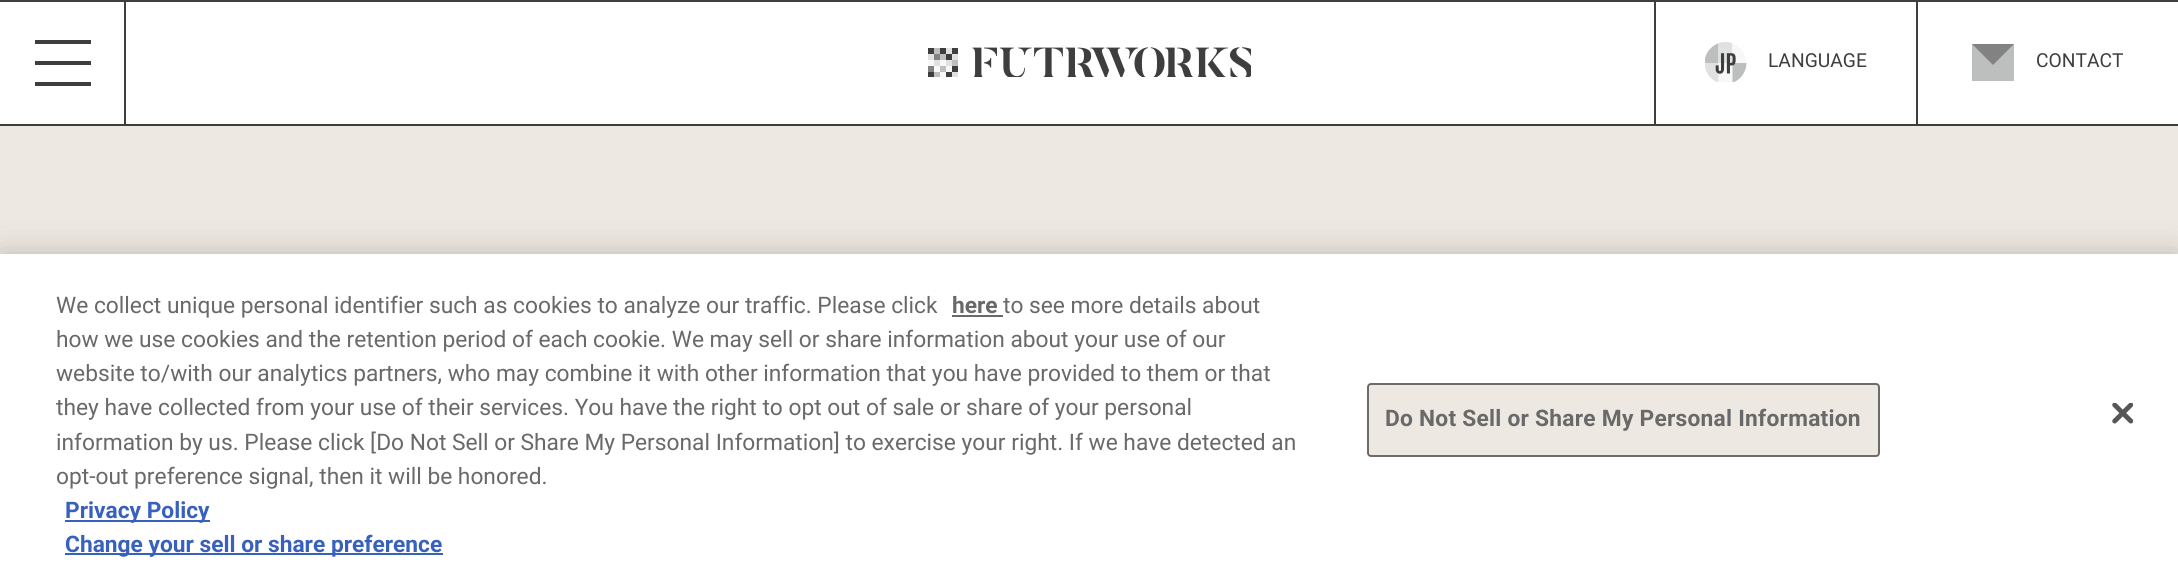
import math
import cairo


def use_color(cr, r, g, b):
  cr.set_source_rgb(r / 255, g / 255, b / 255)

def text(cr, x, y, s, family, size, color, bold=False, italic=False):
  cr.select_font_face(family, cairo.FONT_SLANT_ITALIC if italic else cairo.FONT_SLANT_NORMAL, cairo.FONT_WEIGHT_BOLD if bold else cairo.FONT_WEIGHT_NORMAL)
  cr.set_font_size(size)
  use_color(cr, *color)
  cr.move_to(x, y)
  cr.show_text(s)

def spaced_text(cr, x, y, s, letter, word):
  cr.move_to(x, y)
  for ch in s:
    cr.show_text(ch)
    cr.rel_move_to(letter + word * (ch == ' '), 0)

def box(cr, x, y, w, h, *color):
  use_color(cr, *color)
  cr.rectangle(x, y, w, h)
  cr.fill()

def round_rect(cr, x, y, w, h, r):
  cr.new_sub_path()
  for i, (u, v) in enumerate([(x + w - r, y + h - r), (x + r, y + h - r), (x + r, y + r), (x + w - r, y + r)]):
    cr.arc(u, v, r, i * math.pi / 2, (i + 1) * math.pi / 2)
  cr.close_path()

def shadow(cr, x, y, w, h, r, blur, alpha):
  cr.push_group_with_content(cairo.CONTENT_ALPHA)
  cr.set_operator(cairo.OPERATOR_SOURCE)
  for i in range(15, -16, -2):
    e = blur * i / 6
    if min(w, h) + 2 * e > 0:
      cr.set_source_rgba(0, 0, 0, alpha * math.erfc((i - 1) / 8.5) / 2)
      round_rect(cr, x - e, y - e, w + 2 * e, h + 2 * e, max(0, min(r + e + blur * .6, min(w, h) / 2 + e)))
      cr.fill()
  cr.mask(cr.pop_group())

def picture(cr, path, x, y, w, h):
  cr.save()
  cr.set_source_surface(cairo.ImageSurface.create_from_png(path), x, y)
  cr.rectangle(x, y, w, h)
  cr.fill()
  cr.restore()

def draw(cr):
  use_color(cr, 255, 255, 255)
  cr.paint()
  box(cr, 0, 124, 2178, 2, 62, 62, 62)
  box(cr, 0, 0, 2178, 2, 62, 62, 62)
  box(cr, 124, 0, 2, 126, 62, 62, 62)
  box(cr, 35, 40, 56, 4, 62, 62, 62)
  box(cr, 35, 61, 56, 4, 62, 62, 62)
  box(cr, 35, 82, 56, 4, 62, 62, 62)
  picture(cr, "img_01.png", 928, 47, 323, 30)
  box(cr, 1654, 0, 2, 124, 62, 62, 62)
  picture(cr, "img_02.png", 1705, 42, 42, 40)
  box(cr, 1916, 0, 2, 124, 62, 62, 62)
  box(cr, 1972, 44, 42, 37, 189, 190, 190)
  use_color(cr, 130, 130, 130)
  cr.new_path()
  cr.move_to(1972, 44)
  cr.line_to(1993, 65)
  cr.line_to(2014, 44)
  cr.close_path()
  cr.fill()
  box(cr, 0, 126, 2178, 128, 237, 232, 225)
  use_color(cr, 0, 0, 0)
  shadow(cr, 0, 254, 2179, 325, 0, 16, 0.2)
  box(cr, 0, 254, 2178, 325, 255, 255, 255)
  box(cr, 952, 315, 51, 2, 105, 105, 105)
  box(cr, 65, 520, 145, 2, 56, 96, 190)
  box(cr, 65, 553, 378, 2, 56, 96, 190)
  use_color(cr, 237, 232, 225)
  round_rect(cr, 1368, 384, 511, 72, 3)
  cr.fill_preserve()
  use_color(cr, 107, 107, 107)
  cr.stroke()
  picture(cr, "img_03.png", 2112, 403, 21, 21)
  text(cr, 1768, 67, "LANGUAGE", "Roboto", 19.25, (62, 62, 62))
  text(cr, 2036, 67, "CONTACT", "Roboto", 19.25, (62, 62, 62))
  text(cr, 56, 313, "We collect unique personal identifier such as cookies to analyze our traffic. Please click", "Roboto", 22.75, (105, 105, 105))
  text(cr, 952, 313, "here", "Roboto", 22.75, (105, 105, 105), bold=True)
  text(cr, 1003, 313, "to see more details about", "Roboto", 22.75, (105, 105, 105))
  text(cr, 56, 347, "how we use cookies and the retention period of each cookie. We may sell or share information about your use of our", "Roboto", 22.75, (105, 105, 105))
  text(cr, 56, 381, "website to/with our analytics partners, who may combine it with other information that you have provided to them or that", "Roboto", 22.75, (105, 105, 105))
  text(cr, 56, 415, "they have collected from your use of their services. You have the right to opt out of sale or share of your personal", "Roboto", 22.75, (105, 105, 105))
  text(cr, 56, 450, "information by us. Please click [Do Not Sell or Share My Personal Information] to exercise your right. If we have detected an", "Roboto", 22.75, (105, 105, 105))
  text(cr, 56, 484, "opt-out preference signal, then it will be honored.", "Roboto", 22.75, (105, 105, 105))
  text(cr, 65, 518, "Privacy Policy", "Roboto", 22.75, (56, 96, 190), bold=True)
  text(cr, 65, 552, "Change your sell or share preference", "Roboto", 22.75, (56, 96, 190), bold=True)
  use_color(cr, 105, 105, 105)
  spaced_text(cr, 1385, 426, "Do Not Sell or Share My Personal Information", 0.25, 0)


surface = cairo.ImageSurface(cairo.FORMAT_RGB24, 2178, 579)
cr = cairo.Context(surface)
options = cairo.FontOptions()
options.set_hint_metrics(cairo.HINT_METRICS_OFF)
options.set_hint_style(cairo.HINT_STYLE_NONE)
cr.set_font_options(options)
cr.set_miter_limit(4)
draw(cr)
surface.write_to_png("out.png")
